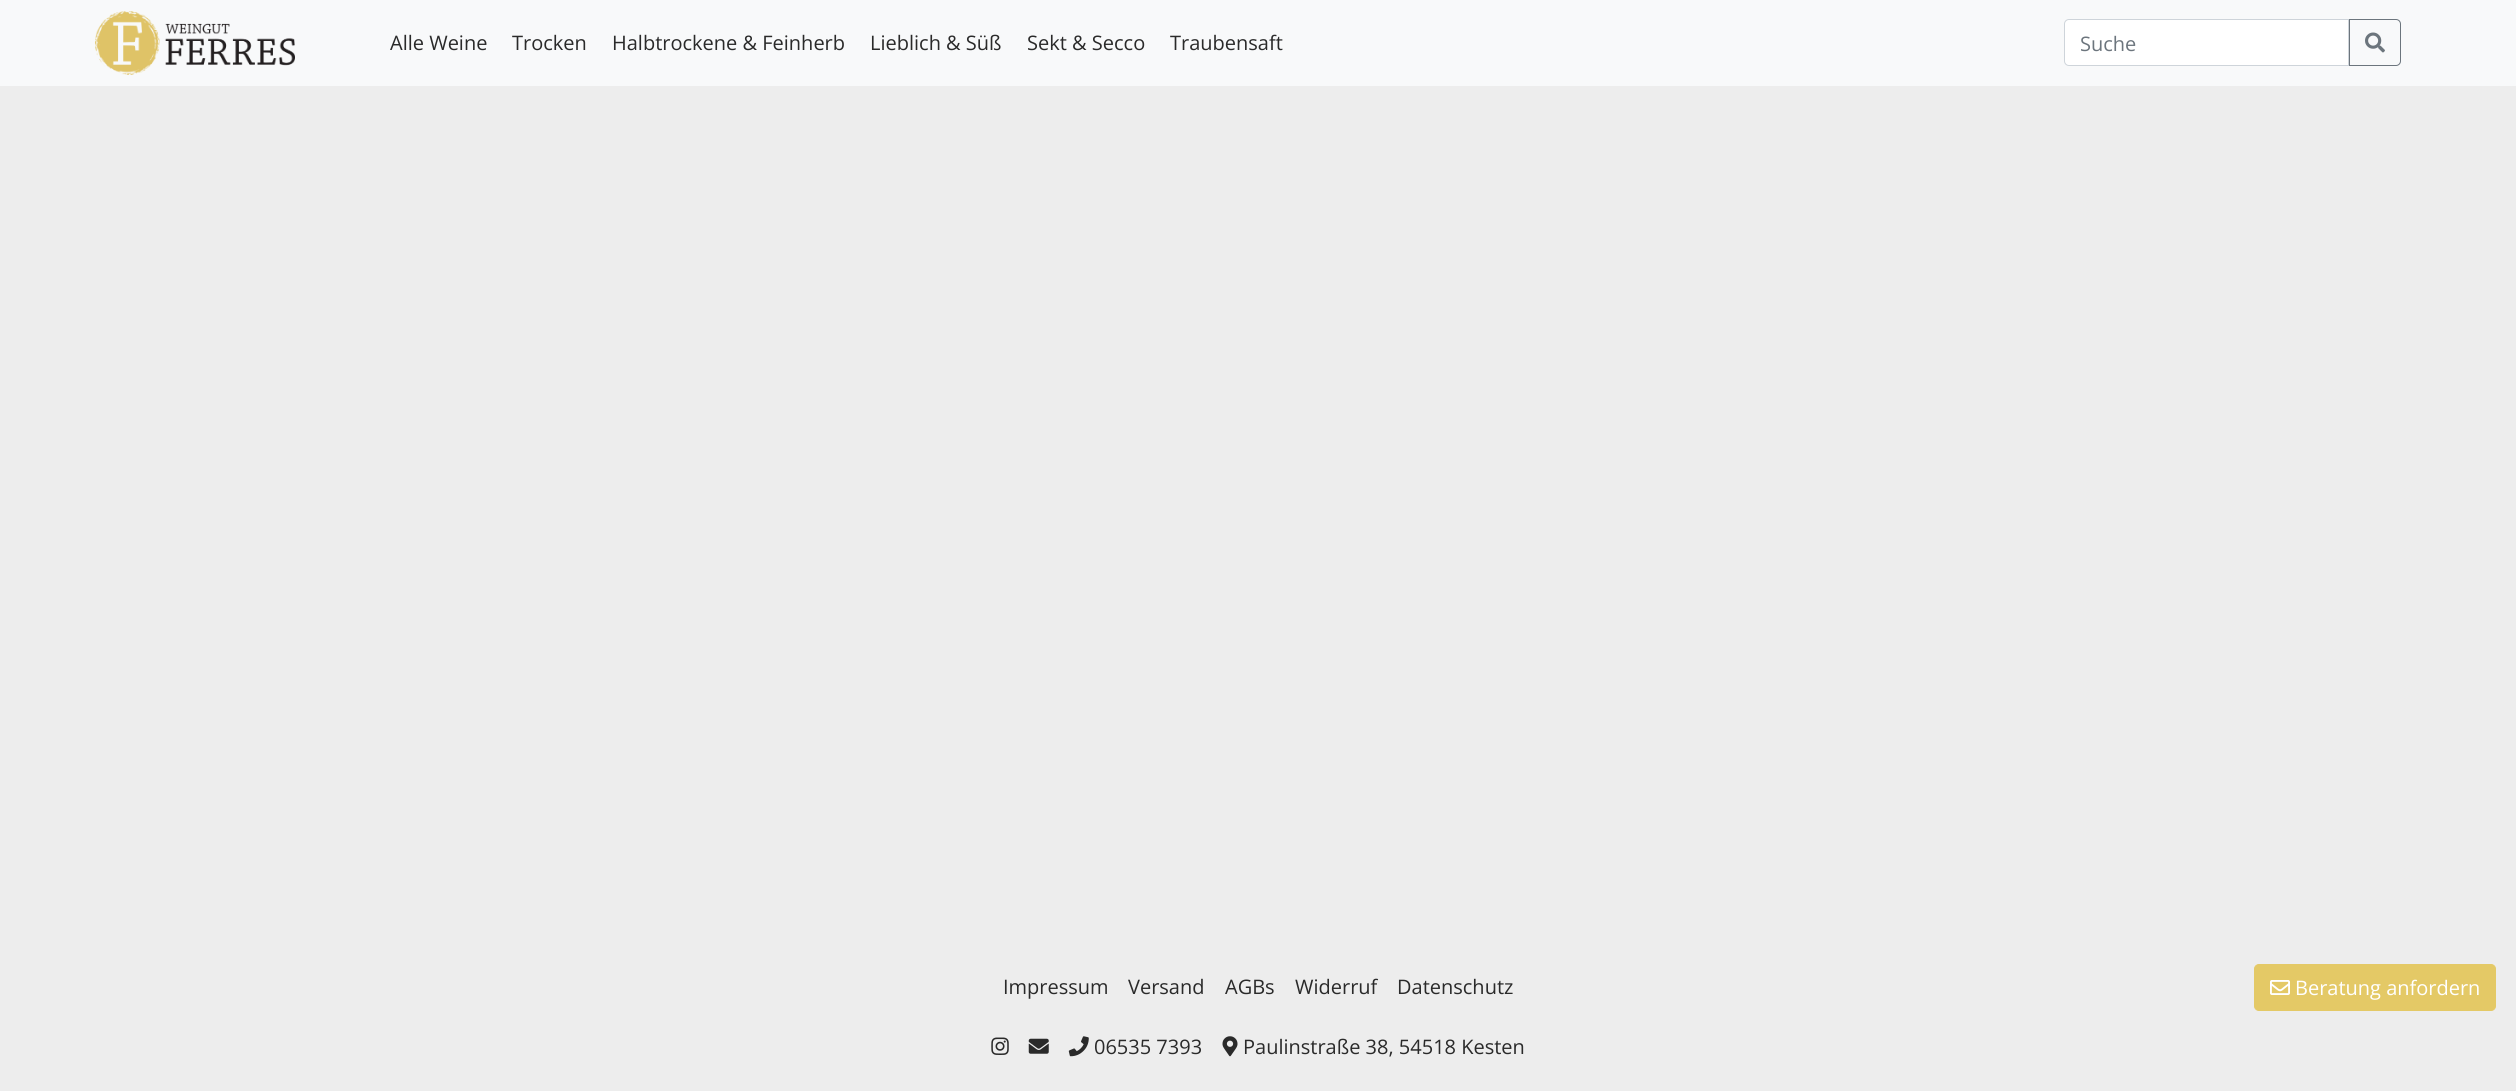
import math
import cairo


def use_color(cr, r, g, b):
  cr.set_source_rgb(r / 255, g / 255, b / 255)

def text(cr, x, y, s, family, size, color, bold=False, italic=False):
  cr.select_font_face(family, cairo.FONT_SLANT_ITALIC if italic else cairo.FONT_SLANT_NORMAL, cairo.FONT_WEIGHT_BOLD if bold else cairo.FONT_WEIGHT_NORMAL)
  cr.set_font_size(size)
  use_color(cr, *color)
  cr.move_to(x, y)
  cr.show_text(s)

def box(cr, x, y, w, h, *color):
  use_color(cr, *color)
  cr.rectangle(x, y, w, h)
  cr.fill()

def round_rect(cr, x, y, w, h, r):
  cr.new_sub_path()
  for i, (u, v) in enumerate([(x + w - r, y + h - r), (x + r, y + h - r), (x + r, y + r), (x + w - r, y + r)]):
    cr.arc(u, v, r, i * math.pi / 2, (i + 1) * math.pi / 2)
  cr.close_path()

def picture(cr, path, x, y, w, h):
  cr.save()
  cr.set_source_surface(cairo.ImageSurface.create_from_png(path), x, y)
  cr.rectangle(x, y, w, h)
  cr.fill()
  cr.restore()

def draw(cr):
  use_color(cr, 237, 237, 237)
  cr.paint()
  box(cr, 0, 0, 2516, 86, 248, 249, 250)
  picture(cr, "img_01.png", 95, 11, 200, 64)
  use_color(cr, 255, 255, 255)
  cr.new_path()
  cr.move_to(2069, 19.5)
  cr.line_to(2348.5, 19.5)
  cr.line_to(2348.5, 65.5)
  cr.line_to(2069, 65.5)
  cr.curve_to(2066.5, 65.5, 2064.5, 63.5, 2064.5, 61)
  cr.line_to(2064.5, 24)
  cr.curve_to(2064.5, 21.5, 2066.5, 19.5, 2069, 19.5)
  cr.close_path()
  cr.fill_preserve()
  use_color(cr, 206, 212, 218)
  cr.set_line_width(1)
  cr.stroke()
  cr.new_path()
  cr.move_to(2349.5, 19.5)
  cr.line_to(2396, 19.5)
  cr.curve_to(2398.5, 19.5, 2400.5, 21.5, 2400.5, 24)
  cr.line_to(2400.5, 61)
  cr.curve_to(2400.5, 63.5, 2398.5, 65.5, 2396, 65.5)
  cr.line_to(2349.5, 65.5)
  cr.close_path()
  use_color(cr, 108, 117, 125)
  cr.stroke()
  picture(cr, "img_02.png", 2365, 32, 20, 21)
  use_color(cr, 228, 201, 102)
  round_rect(cr, 2254.5, 964.5, 241, 46, 4.5)
  cr.fill_preserve()
  cr.stroke()
  picture(cr, "img_03.png", 2270, 980, 20, 15)
  picture(cr, "img_04.png", 991, 1037, 18, 18)
  picture(cr, "img_05.png", 1028, 1038, 21, 16)
  picture(cr, "img_06.png", 1068, 1036, 21, 21)
  picture(cr, "img_07.png", 1222, 1036, 16, 21)
  text(cr, 390, 50, "Alle Weine", "Open Sans", 20, (42, 42, 42))
  text(cr, 512, 50, "Trocken", "Open Sans", 20, (42, 42, 42))
  text(cr, 612, 50, "Halbtrockene & Feinherb", "Open Sans", 20, (42, 42, 42))
  text(cr, 870, 50, "Lieblich & Süß", "Open Sans", 20, (42, 42, 42))
  text(cr, 1027, 50, "Sekt & Secco", "Open Sans", 20, (42, 42, 42))
  text(cr, 1170, 50, "Traubensaft", "Open Sans", 20, (42, 42, 42))
  text(cr, 2080, 51, "Suche", "Open Sans", 20, (108, 117, 125))
  text(cr, 2295, 995, "Beratung anfordern", "Open Sans", 20, (255, 255, 255))
  text(cr, 1003, 994, "Impressum", "Open Sans", 20, (42, 42, 42))
  text(cr, 1128, 994, "Versand", "Open Sans", 20, (42, 42, 42))
  text(cr, 1225, 994, "AGBs", "Open Sans", 20, (42, 42, 42))
  text(cr, 1295, 994, "Widerruf", "Open Sans", 20, (42, 42, 42))
  text(cr, 1397, 994, "Datenschutz", "Open Sans", 20, (42, 42, 42))
  text(cr, 1094, 1054, "06535 7393", "Open Sans", 20, (42, 42, 42))
  text(cr, 1243, 1054, "Paulinstraße 38, 54518 Kesten", "Open Sans", 20, (42, 42, 42))


surface = cairo.ImageSurface(cairo.FORMAT_RGB24, 2516, 1091)
cr = cairo.Context(surface)
options = cairo.FontOptions()
options.set_hint_metrics(cairo.HINT_METRICS_OFF)
options.set_hint_style(cairo.HINT_STYLE_NONE)
cr.set_font_options(options)
cr.set_miter_limit(4)
draw(cr)
surface.write_to_png("out.png")
